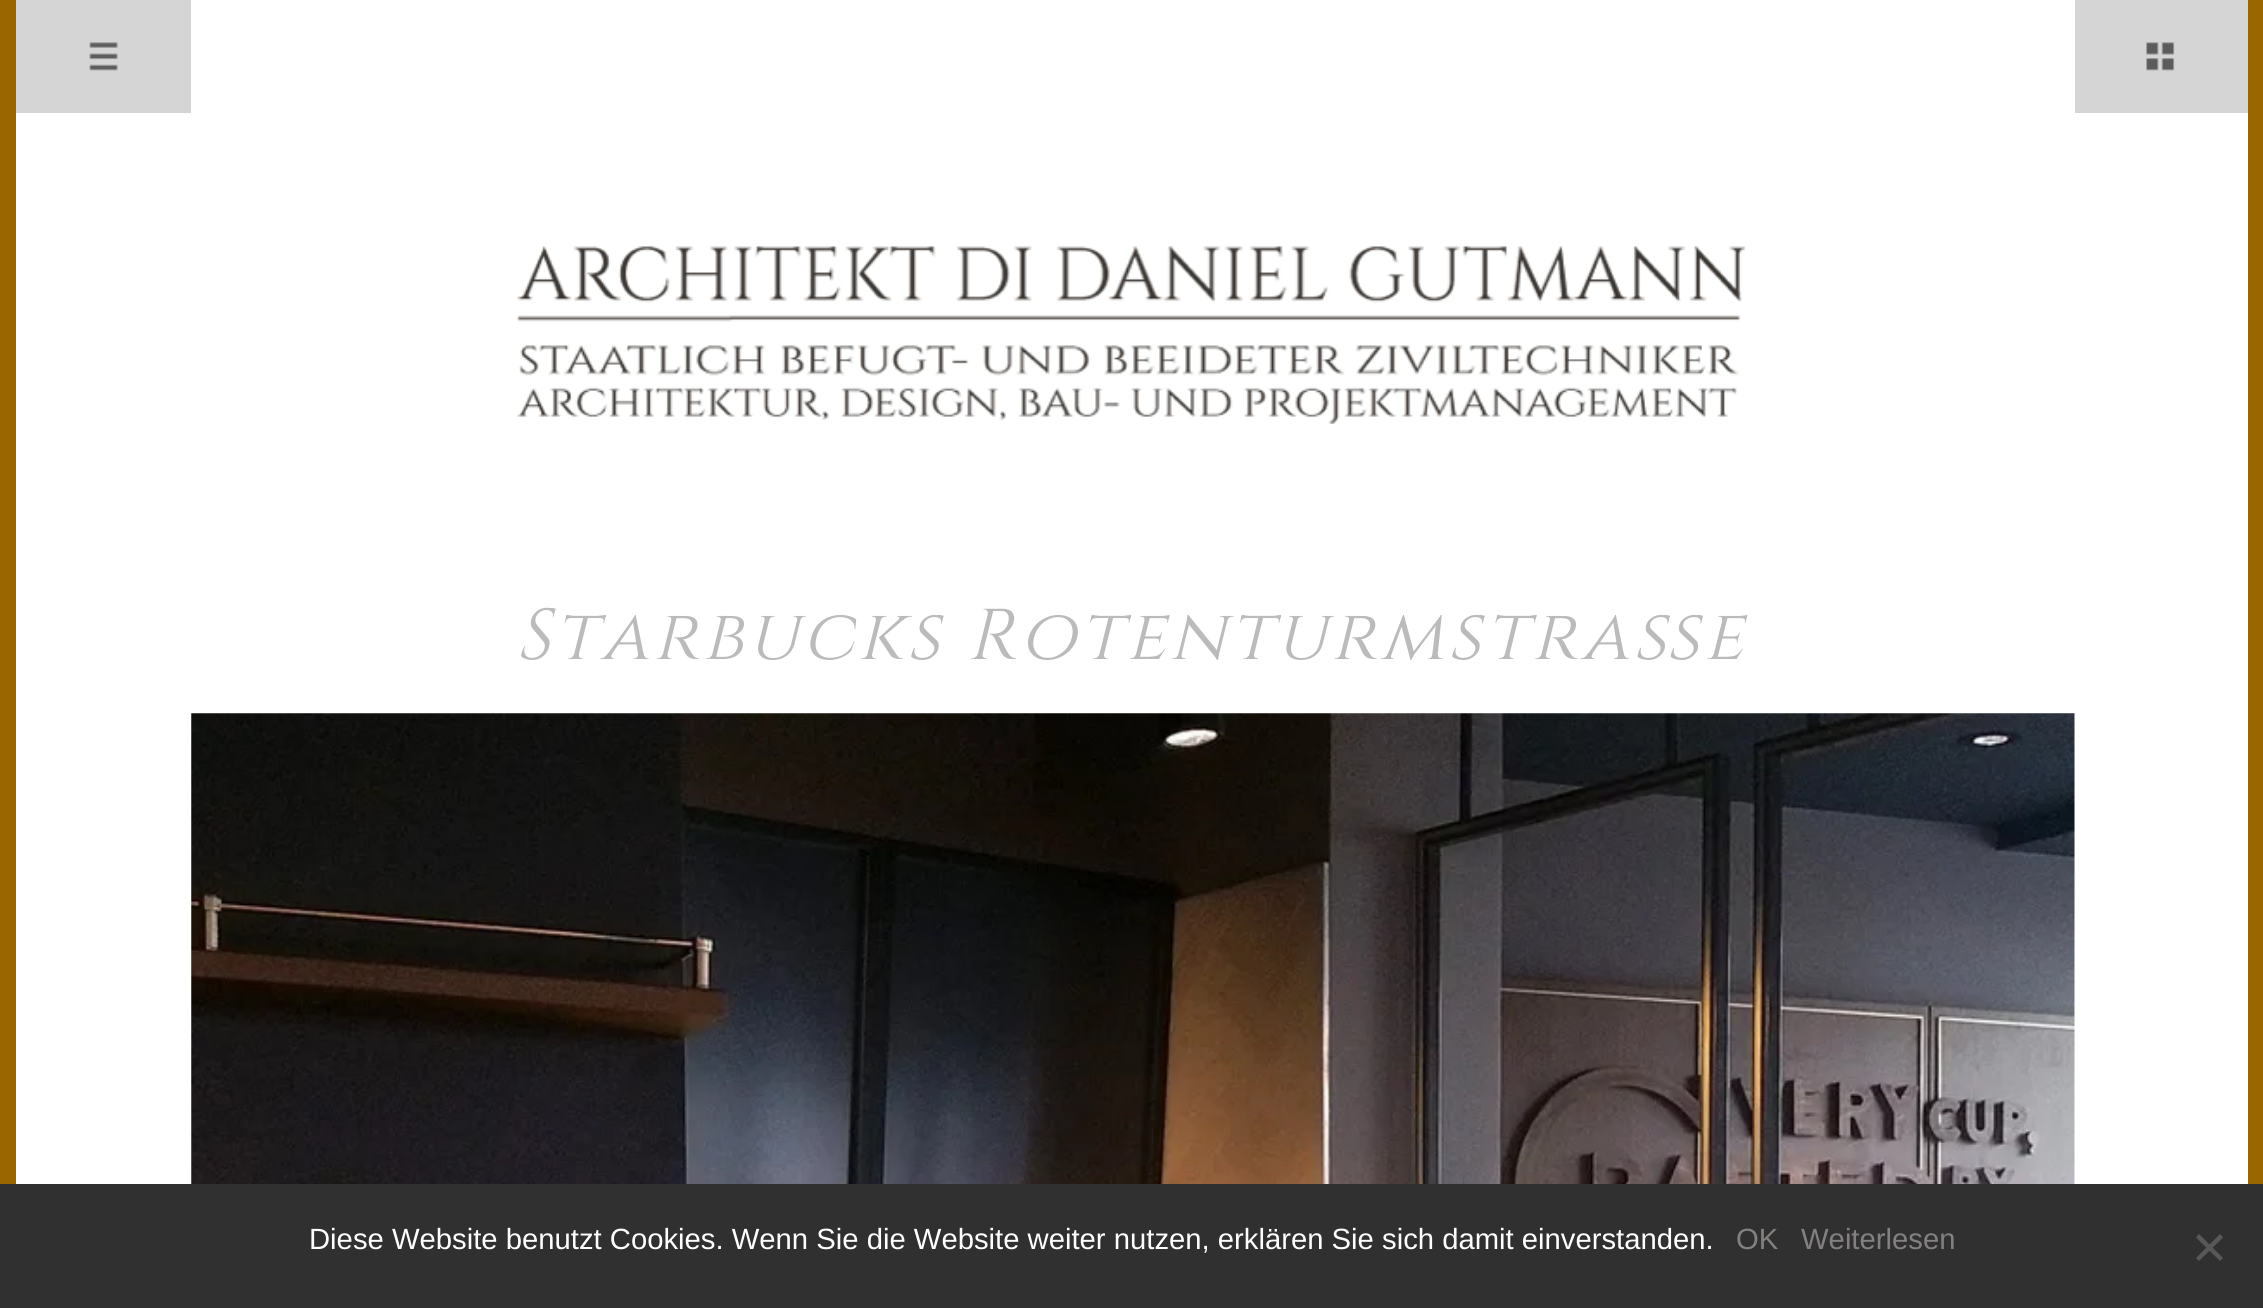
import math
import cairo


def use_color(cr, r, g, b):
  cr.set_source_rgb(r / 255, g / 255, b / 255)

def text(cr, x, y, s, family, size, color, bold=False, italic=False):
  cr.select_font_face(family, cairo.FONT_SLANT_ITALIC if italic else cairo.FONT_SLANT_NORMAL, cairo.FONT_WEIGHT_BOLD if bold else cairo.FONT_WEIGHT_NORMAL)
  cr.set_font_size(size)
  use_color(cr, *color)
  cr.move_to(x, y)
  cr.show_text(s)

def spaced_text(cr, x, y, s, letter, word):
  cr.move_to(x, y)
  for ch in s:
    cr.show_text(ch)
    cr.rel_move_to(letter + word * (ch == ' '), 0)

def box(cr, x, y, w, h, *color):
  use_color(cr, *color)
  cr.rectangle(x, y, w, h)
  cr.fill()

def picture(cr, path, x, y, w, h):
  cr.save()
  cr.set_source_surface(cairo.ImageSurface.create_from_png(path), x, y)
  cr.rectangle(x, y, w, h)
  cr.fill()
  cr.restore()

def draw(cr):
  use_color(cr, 255, 255, 255)
  cr.paint()
  box(cr, 2248, 0, 15, 1184, 153, 102, 0)
  box(cr, 0, 0, 16, 1184, 153, 102, 0)
  box(cr, 16, 0, 175, 113, 213, 213, 213)
  picture(cr, "img_01.png", 89, 42, 29, 29)
  box(cr, 2075, 0, 173, 113, 213, 213, 213)
  picture(cr, "img_02.png", 2146, 42, 29, 29)
  picture(cr, "img_03.png", 516, 246, 1230, 178)
  picture(cr, "img_04.png", 191, 713, 1884, 471)
  box(cr, 0, 1184, 2263, 124, 48, 48, 48)
  use_color(cr, 88, 88, 88)
  cr.new_path()
  cr.move_to(2220, 1234)
  cr.line_to(2223, 1237.5)
  cr.line_to(2199, 1261)
  cr.line_to(2196, 1258)
  cr.close_path()
  cr.fill()
  cr.new_path()
  cr.move_to(2196, 1237.5)
  cr.line_to(2199, 1234)
  cr.line_to(2223, 1258)
  cr.line_to(2220, 1261)
  cr.close_path()
  cr.fill()
  cr.select_font_face("Cinzel", cairo.FONT_SLANT_ITALIC)
  cr.set_font_size(71.75)
  use_color(cr, 187, 187, 187)
  spaced_text(cr, 516, 659, "Starbucks Rotenturmstraße", 4.5, 0)
  text(cr, 309, 1249, "Diese Website benutzt Cookies. Wenn Sie die Website weiter nutzen, erklären Sie sich damit einverstanden.", "Liberation Sans", 29.25, (255, 255, 255))
  text(cr, 1736, 1249, "OK", "Liberation Sans", 29.25, (131, 128, 128))
  text(cr, 1801, 1249, "Weiterlesen", "Liberation Sans", 29.25, (131, 128, 128))


surface = cairo.ImageSurface(cairo.FORMAT_RGB24, 2263, 1308)
cr = cairo.Context(surface)
options = cairo.FontOptions()
options.set_hint_metrics(cairo.HINT_METRICS_OFF)
options.set_hint_style(cairo.HINT_STYLE_NONE)
cr.set_font_options(options)
cr.set_miter_limit(4)
draw(cr)
surface.write_to_png("out.png")
